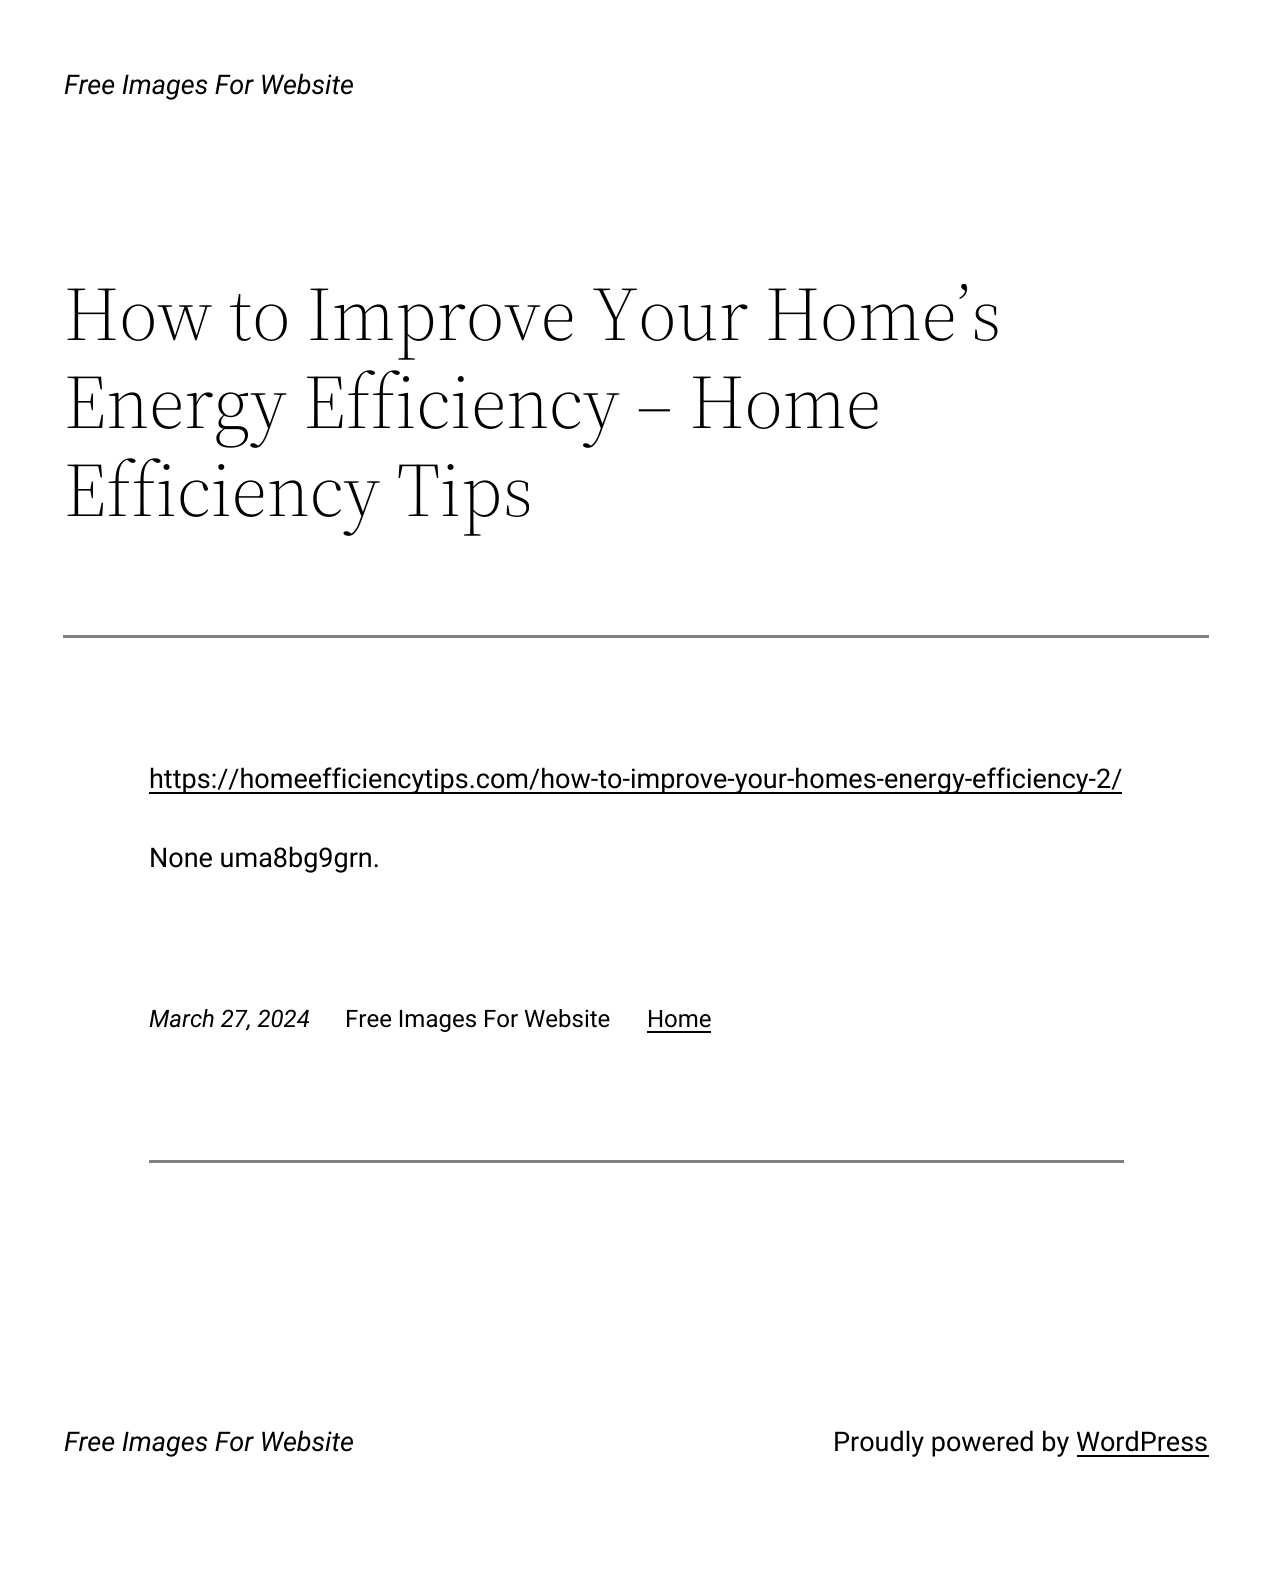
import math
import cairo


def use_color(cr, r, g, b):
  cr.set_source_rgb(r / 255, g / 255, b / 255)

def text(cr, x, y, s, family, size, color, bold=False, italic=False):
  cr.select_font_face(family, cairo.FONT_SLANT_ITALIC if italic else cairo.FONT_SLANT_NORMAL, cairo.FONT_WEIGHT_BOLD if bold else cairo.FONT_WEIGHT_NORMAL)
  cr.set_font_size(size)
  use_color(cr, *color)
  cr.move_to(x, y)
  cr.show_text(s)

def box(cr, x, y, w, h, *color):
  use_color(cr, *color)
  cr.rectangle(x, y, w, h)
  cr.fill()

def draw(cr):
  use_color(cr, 255, 255, 255)
  cr.paint()
  box(cr, 63, 635, 1146, 3, 128, 128, 128)
  box(cr, 149, 792, 973, 2, 0, 0, 0)
  box(cr, 647, 1031, 64, 2, 0, 0, 0)
  box(cr, 149, 1160, 975, 3, 128, 128, 128)
  box(cr, 1077, 1455, 132, 2, 0, 0, 0)
  text(cr, 64, 94, "Free Images For Website", "Roboto", 27, (0, 0, 0), italic=True)
  text(cr, 64, 340, "How to Improve Your Home’s", "Source Serif 4 Light", 76.25, (0, 0, 0))
  text(cr, 64, 428, "Energy Efficiency – Home", "Source Serif 4 Light", 76.25, (0, 0, 0))
  text(cr, 64, 516, "Efficiency Tips", "Source Serif 4 Light", 76.25, (0, 0, 0))
  text(cr, 149, 788, "https://homeefficiencytips.com/how-to-improve-your-homes-energy-efficiency-2/", "Roboto", 27, (0, 0, 0))
  text(cr, 149, 867, "None uma8bg9grn.", "Roboto", 27, (0, 0, 0))
  text(cr, 149, 1027, "March 27, 2024", "Roboto", 24, (0, 0, 0), italic=True)
  text(cr, 345, 1027, "Free Images For Website", "Roboto", 24, (0, 0, 0))
  text(cr, 647, 1027, "Home", "Roboto", 24, (0, 0, 0))
  text(cr, 64, 1451, "Free Images For Website", "Roboto", 27, (0, 0, 0), italic=True)
  text(cr, 833, 1451, "Proudly powered by WordPress", "Roboto", 27, (0, 0, 0))


surface = cairo.ImageSurface(cairo.FORMAT_RGB24, 1272, 1589)
cr = cairo.Context(surface)
options = cairo.FontOptions()
options.set_hint_metrics(cairo.HINT_METRICS_OFF)
options.set_hint_style(cairo.HINT_STYLE_NONE)
cr.set_font_options(options)
cr.set_miter_limit(4)
draw(cr)
surface.write_to_png("out.png")
